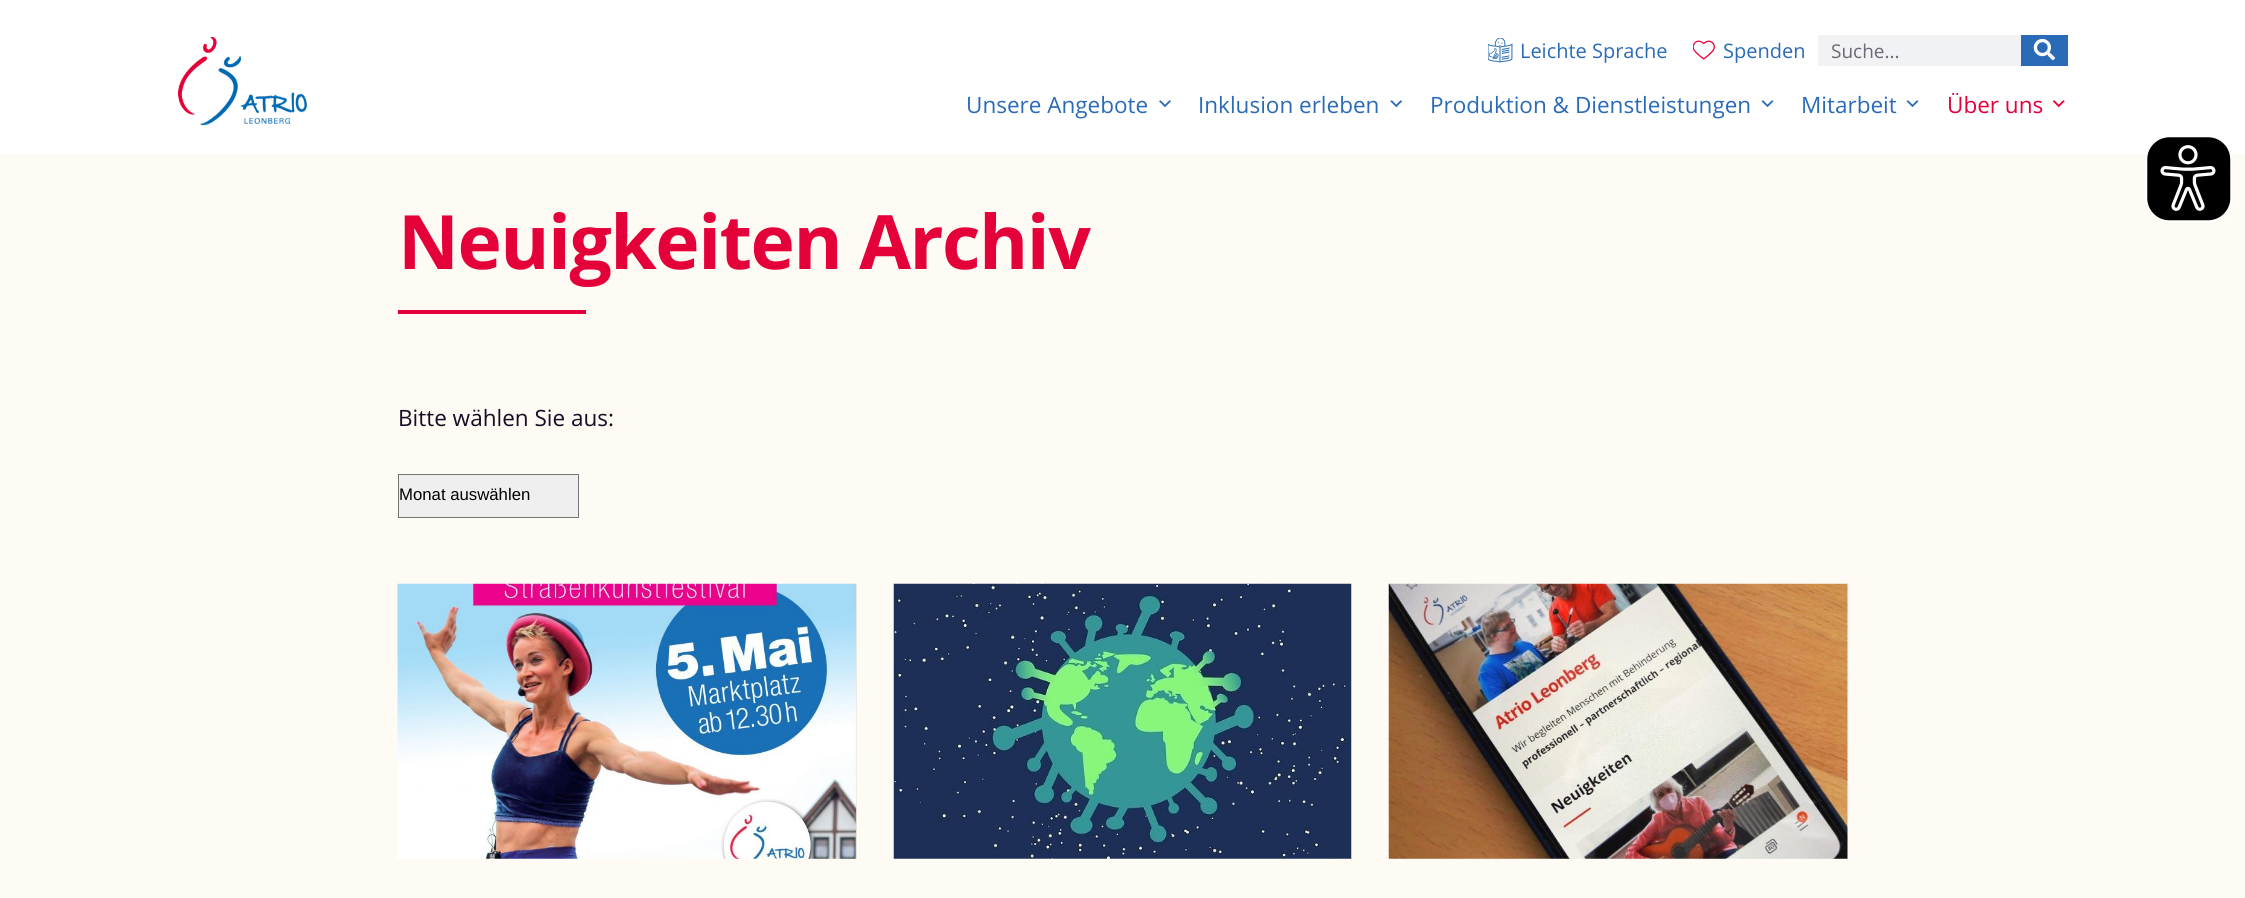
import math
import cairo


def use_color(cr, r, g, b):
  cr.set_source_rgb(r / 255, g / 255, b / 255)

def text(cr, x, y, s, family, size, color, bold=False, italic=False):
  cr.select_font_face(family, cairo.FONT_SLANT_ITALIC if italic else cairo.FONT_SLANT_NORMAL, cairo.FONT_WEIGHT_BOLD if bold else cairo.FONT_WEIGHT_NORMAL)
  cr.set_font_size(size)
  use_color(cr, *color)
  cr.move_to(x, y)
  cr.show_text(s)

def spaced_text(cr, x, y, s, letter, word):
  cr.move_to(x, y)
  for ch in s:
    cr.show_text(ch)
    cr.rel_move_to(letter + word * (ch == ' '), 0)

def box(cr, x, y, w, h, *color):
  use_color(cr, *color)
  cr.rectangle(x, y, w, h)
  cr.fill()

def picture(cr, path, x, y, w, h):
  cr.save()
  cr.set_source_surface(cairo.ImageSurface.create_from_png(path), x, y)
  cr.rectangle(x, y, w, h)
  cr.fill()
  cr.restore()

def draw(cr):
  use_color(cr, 255, 255, 255)
  cr.paint()
  picture(cr, "img_01.png", 178, 37, 129, 89)
  picture(cr, "img_02.png", 1488, 38, 25, 25)
  picture(cr, "img_03.png", 1693, 40, 22, 20)
  box(cr, 1818, 35, 203, 31, 241, 242, 243)
  box(cr, 2021, 35, 47, 31, 42, 107, 183)
  picture(cr, "img_04.png", 2033, 38, 22, 23)
  picture(cr, "img_05.png", 1159, 100, 12, 8)
  picture(cr, "img_06.png", 1390, 100, 13, 8)
  picture(cr, "img_07.png", 1761, 100, 13, 8)
  picture(cr, "img_07.png", 1906, 100, 13, 8)
  picture(cr, "img_08.png", 2052, 100, 13, 8)
  box(cr, 0, 154, 2245, 744, 253, 251, 243)
  box(cr, 398, 310, 188, 4, 228, 0, 57)
  use_color(cr, 239, 239, 239)
  cr.rectangle(398.5, 474.5, 180, 43)
  cr.fill_preserve()
  use_color(cr, 118, 118, 118)
  cr.set_line_width(1)
  cr.stroke()
  picture(cr, "img_09.png", 397, 583, 460, 276)
  picture(cr, "img_10.png", 893, 583, 459, 276)
  picture(cr, "img_11.png", 1388, 583, 460, 276)
  picture(cr, "img_12.png", 2145, 137, 88, 86)
  text(cr, 1520, 58, "Leichte Sprache", "Open Sans", 20, (42, 107, 183))
  text(cr, 1723, 58, "Spenden", "Open Sans", 20, (42, 107, 183))
  text(cr, 1831, 58, "Suche...", "Open Sans", 19, (112, 104, 119))
  text(cr, 966, 113, "Unsere Angebote", "Open Sans", 22.5, (42, 107, 183))
  text(cr, 1198, 113, "Inklusion erleben", "Open Sans", 22.5, (42, 107, 183))
  text(cr, 1430, 113, "Produktion & Dienstleistungen", "Open Sans", 22.5, (42, 107, 183))
  text(cr, 1801, 113, "Mitarbeit", "Open Sans", 22.5, (42, 107, 183))
  text(cr, 1947, 113, "Über uns", "Open Sans", 22.5, (228, 0, 57))
  cr.select_font_face("Open Sans", cairo.FONT_SLANT_NORMAL, cairo.FONT_WEIGHT_BOLD)
  cr.set_font_size(75)
  spaced_text(cr, 398, 269, "Neuigkeiten Archiv", -1.5, 0)
  text(cr, 398, 426, "Bitte wählen Sie aus:", "Open Sans", 22.5, (26, 12, 36))
  text(cr, 399, 500, "Monat auswählen", "Liberation Sans", 16.75, (0, 0, 0))


surface = cairo.ImageSurface(cairo.FORMAT_RGB24, 2245, 898)
cr = cairo.Context(surface)
options = cairo.FontOptions()
options.set_hint_metrics(cairo.HINT_METRICS_OFF)
options.set_hint_style(cairo.HINT_STYLE_NONE)
cr.set_font_options(options)
cr.set_miter_limit(4)
draw(cr)
surface.write_to_png("out.png")
